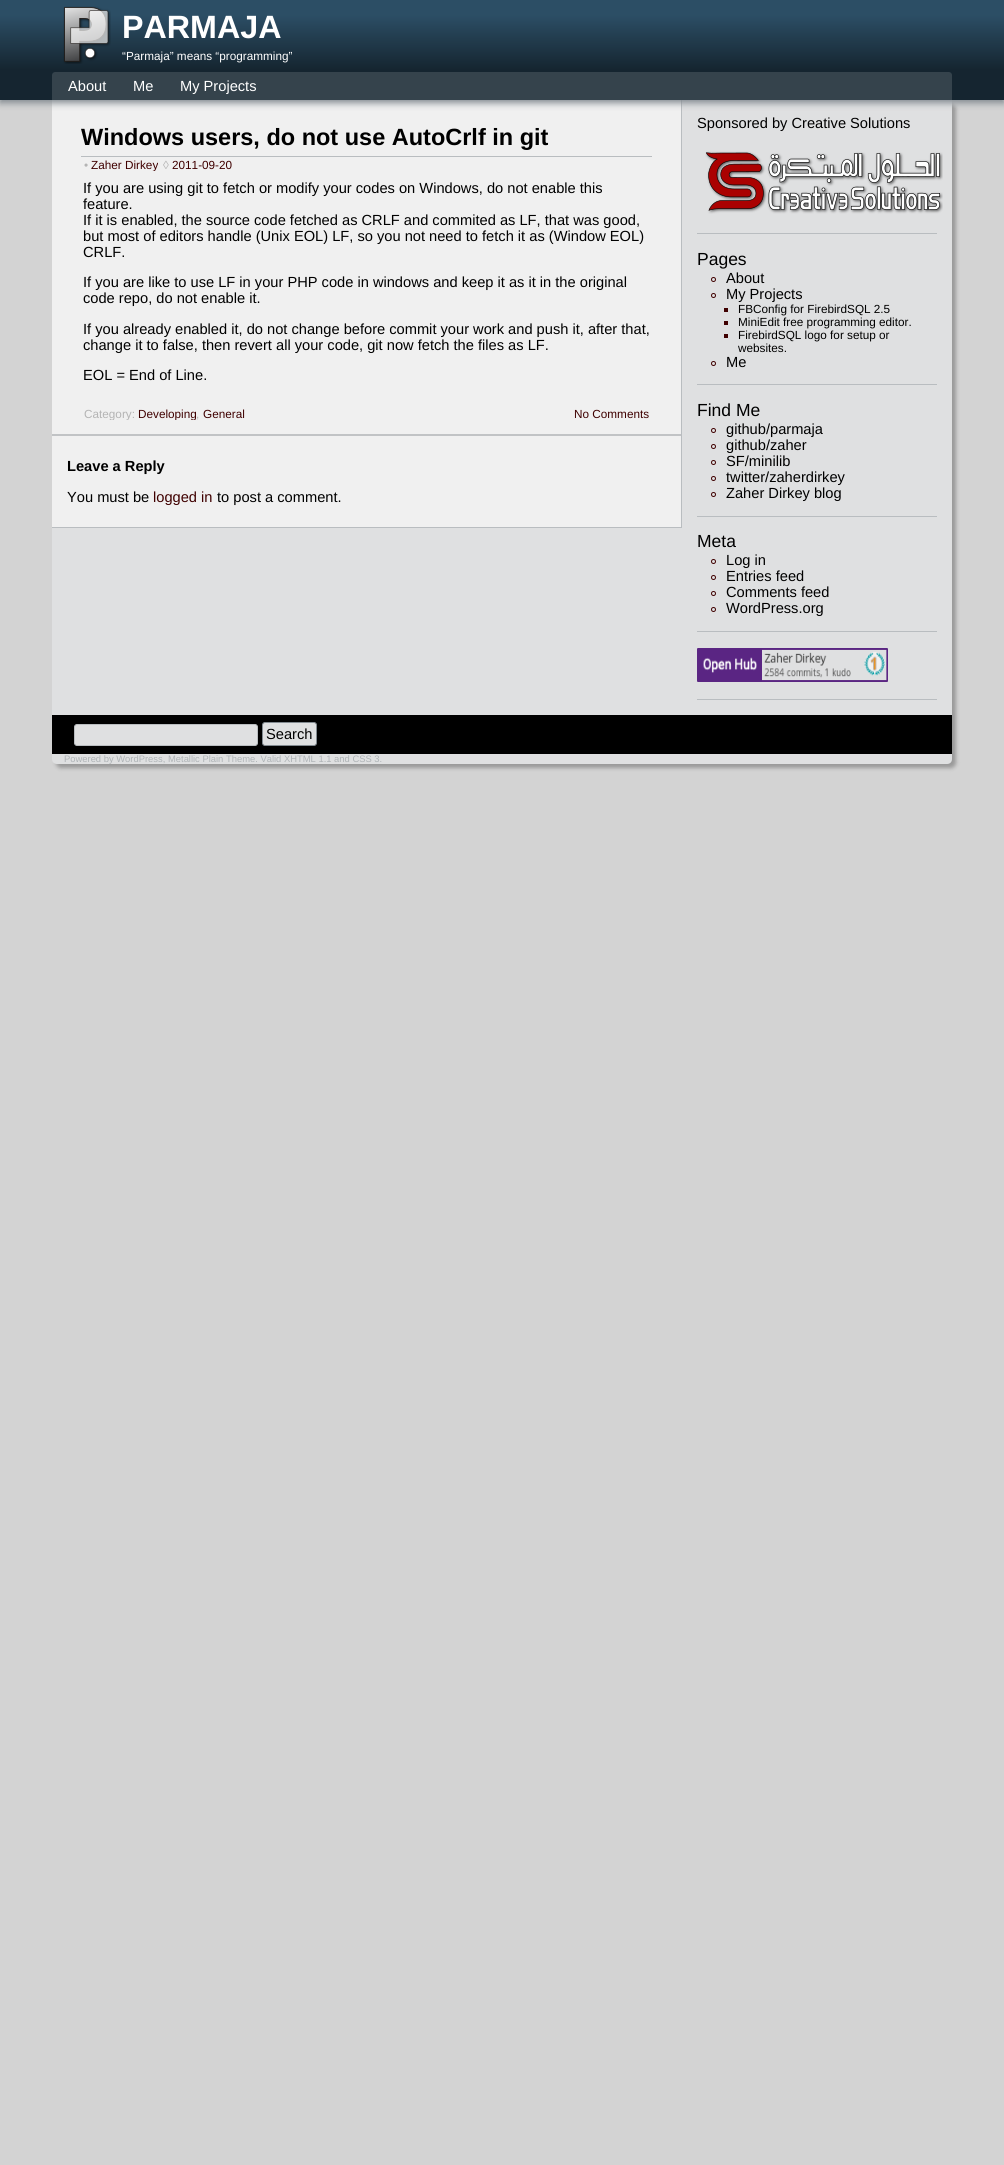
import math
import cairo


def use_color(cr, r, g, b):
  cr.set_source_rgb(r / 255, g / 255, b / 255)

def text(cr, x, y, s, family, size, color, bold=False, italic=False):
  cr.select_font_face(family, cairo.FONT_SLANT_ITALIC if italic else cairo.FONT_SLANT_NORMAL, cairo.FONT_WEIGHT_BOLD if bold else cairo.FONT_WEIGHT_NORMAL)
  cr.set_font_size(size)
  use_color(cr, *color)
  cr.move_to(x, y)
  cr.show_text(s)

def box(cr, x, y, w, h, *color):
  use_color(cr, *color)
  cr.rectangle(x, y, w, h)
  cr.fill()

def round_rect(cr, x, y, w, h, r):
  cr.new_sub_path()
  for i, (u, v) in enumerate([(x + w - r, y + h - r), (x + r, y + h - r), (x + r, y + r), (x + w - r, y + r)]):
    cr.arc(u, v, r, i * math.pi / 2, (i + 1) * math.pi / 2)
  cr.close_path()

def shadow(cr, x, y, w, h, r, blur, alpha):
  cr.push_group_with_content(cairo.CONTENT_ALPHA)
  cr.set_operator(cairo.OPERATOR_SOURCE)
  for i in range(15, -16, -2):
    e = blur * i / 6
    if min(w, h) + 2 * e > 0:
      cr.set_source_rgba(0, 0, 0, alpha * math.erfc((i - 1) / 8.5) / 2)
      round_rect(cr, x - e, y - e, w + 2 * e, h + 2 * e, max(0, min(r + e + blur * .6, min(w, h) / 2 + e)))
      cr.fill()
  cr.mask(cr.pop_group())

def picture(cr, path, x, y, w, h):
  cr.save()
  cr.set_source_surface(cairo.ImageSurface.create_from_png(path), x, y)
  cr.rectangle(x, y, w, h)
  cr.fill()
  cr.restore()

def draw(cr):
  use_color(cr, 211, 211, 211)
  cr.paint()
  use_color(cr, 153, 153, 153)
  shadow(cr, 56, 104, 900, 664, 5, 2, 1)
  use_color(cr, 223, 224, 225)
  cr.new_path()
  cr.move_to(52, 100)
  cr.line_to(952, 100)
  cr.line_to(952, 759)
  cr.curve_to(952, 762, 950, 764, 947, 764)
  cr.line_to(57, 764)
  cr.curve_to(54, 764, 52, 762, 52, 759)
  cr.close_path()
  cr.fill()
  box(cr, 52, 100, 629, 427, 240, 240, 240)
  box(cr, 681, 100, 1, 428, 185, 189, 192)
  use_color(cr, 130, 138, 144)
  shadow(cr, 0, 3, 1004, 100, 0, 3.5, 1)
  gradient = cairo.LinearGradient(502, 0, 502, 100)
  gradient.add_color_stop_rgba(0.15, 0.173, 0.306, 0.396, 1)
  gradient.add_color_stop_rgba(0.7, 0.082, 0.145, 0.188, 1)
  cr.set_source(gradient)
  cr.rectangle(0, 0, 1004, 100)
  cr.fill()
  picture(cr, "img_01.png", 63, 6, 48, 58)
  use_color(cr, 53, 67, 76)
  cr.new_path()
  cr.move_to(55, 72)
  cr.line_to(949, 72)
  cr.curve_to(950.5, 72, 952, 73.5, 952, 75)
  cr.line_to(952, 100)
  cr.line_to(52, 100)
  cr.line_to(52, 75)
  cr.curve_to(52, 73.5, 53.5, 72, 55, 72)
  cr.close_path()
  cr.fill()
  box(cr, 52, 527, 630, 1, 185, 189, 192)
  box(cr, 52, 434, 629, 2, 193, 195, 197)
  box(cr, 81, 156, 571, 1, 185, 189, 192)
  box(cr, 697, 233, 240, 1, 185, 189, 192)
  picture(cr, "img_02.png", 705, 151, 238, 63)
  box(cr, 697, 384, 240, 1, 185, 189, 192)
  cr.arc(713.5, 279.5, 2, 0, 2 * math.pi)
  use_color(cr, 63, 0, 0)
  cr.set_line_width(1)
  cr.stroke()
  cr.arc(713.5, 295.5, 2, 0, 2 * math.pi)
  cr.stroke()
  box(cr, 724, 308, 4, 4, 63, 0, 0)
  box(cr, 724, 321, 4, 4, 63, 0, 0)
  box(cr, 724, 334, 4, 4, 63, 0, 0)
  cr.arc(713.5, 363.5, 2, 0, 2 * math.pi)
  cr.stroke()
  box(cr, 697, 516, 240, 1, 185, 189, 192)
  cr.arc(713.5, 430.5, 2, 0, 2 * math.pi)
  use_color(cr, 63, 0, 0)
  cr.stroke()
  cr.arc(713.5, 446.5, 2, 0, 2 * math.pi)
  cr.stroke()
  cr.arc(713.5, 462.5, 2, 0, 2 * math.pi)
  cr.stroke()
  cr.arc(713.5, 478.5, 2, 0, 2 * math.pi)
  cr.stroke()
  cr.arc(713.5, 494.5, 2, 0, 2 * math.pi)
  cr.stroke()
  box(cr, 697, 631, 240, 1, 185, 189, 192)
  cr.arc(713.5, 561.5, 2, 0, 2 * math.pi)
  use_color(cr, 63, 0, 0)
  cr.stroke()
  cr.arc(713.5, 577.5, 2, 0, 2 * math.pi)
  cr.stroke()
  cr.arc(713.5, 593.5, 2, 0, 2 * math.pi)
  cr.stroke()
  cr.arc(713.5, 609.5, 2, 0, 2 * math.pi)
  cr.stroke()
  box(cr, 697, 699, 240, 1, 185, 189, 192)
  picture(cr, "img_03.png", 697, 648, 191, 34)
  box(cr, 52, 715, 900, 39, 0, 0, 0)
  use_color(cr, 223, 224, 225)
  round_rect(cr, 74.5, 724.5, 183, 21, 2.5)
  cr.fill_preserve()
  use_color(cr, 185, 189, 192)
  cr.stroke()
  use_color(cr, 223, 224, 225)
  round_rect(cr, 262.5, 722.5, 54, 23, 2.5)
  cr.fill_preserve()
  use_color(cr, 130, 138, 144)
  cr.stroke()
  text(cr, 122, 38, "PARMAJA", "Liberation Sans", 32.25, (255, 255, 255), bold=True)
  text(cr, 122, 60, "“Parmaja” means “programming”", "Liberation Sans", 11.75, (255, 255, 255))
  text(cr, 68, 91, "About", "Liberation Sans", 14.65, (255, 255, 255))
  text(cr, 133, 91, "Me", "Liberation Sans", 14.65, (255, 255, 255))
  text(cr, 180, 91, "My Projects", "Liberation Sans", 14.65, (255, 255, 255))
  text(cr, 81, 145, "Windows users, do not use AutoCrlf in git", "Liberation Sans", 23.5, (0, 0, 0), bold=True)
  text(cr, 84, 169, "•", "Liberation Sans", 11.75, (180, 180, 180))
  cr.save()
  cr.rectangle(81, 157, 571, 14)
  cr.clip()
  text(cr, 91, 169, "Zaher Dirkey", "Liberation Sans", 11.75, (63, 0, 0))
  cr.restore()
  text(cr, 163, 169, "◊", "Liberation Sans", 11.75, (180, 180, 180))
  text(cr, 172, 169, "2011-09-20", "Liberation Sans", 11.75, (63, 0, 0))
  text(cr, 83, 193, "If you are using git to fetch or modify your codes on Windows, do not enable this", "Liberation Sans", 14.65, (0, 0, 0))
  text(cr, 83, 209, "feature.", "Liberation Sans", 14.65, (0, 0, 0))
  text(cr, 83, 225, "If it is enabled, the source code fetched as CRLF and commited as LF, that was good,", "Liberation Sans", 14.65, (0, 0, 0))
  text(cr, 83, 241, "but most of editors handle (Unix EOL) LF, so you not need to fetch it as (Window EOL)", "Liberation Sans", 14.65, (0, 0, 0))
  text(cr, 83, 257, "CRLF.", "Liberation Sans", 14.65, (0, 0, 0))
  text(cr, 83, 287, "If you are like to use LF in your PHP code in windows and keep it as it in the original", "Liberation Sans", 14.65, (0, 0, 0))
  text(cr, 83, 303, "code repo, do not enable it.", "Liberation Sans", 14.65, (0, 0, 0))
  text(cr, 83, 334, "If you already enabled it, do not change before commit your work and push it, after that,", "Liberation Sans", 14.65, (0, 0, 0))
  text(cr, 83, 350, "change it to false, then revert all your code, git now fetch the files as LF.", "Liberation Sans", 14.65, (0, 0, 0))
  text(cr, 83, 380, "EOL = End of Line.", "Liberation Sans", 14.65, (0, 0, 0))
  cr.save()
  cr.rectangle(81, 405, 571, 15)
  cr.clip()
  text(cr, 84, 418, "Category:", "Liberation Sans", 11.75, (180, 180, 180))
  text(cr, 138, 418, "Developing", "Liberation Sans", 11.75, (63, 0, 0))
  cr.restore()
  text(cr, 196, 418, ",", "Liberation Sans", 11.75, (180, 180, 180))
  text(cr, 203, 418, "General", "Liberation Sans", 11.75, (63, 0, 0))
  text(cr, 574, 418, "No Comments", "Liberation Sans", 11.75, (63, 0, 0))
  text(cr, 67, 471, "Leave a Reply", "Liberation Sans", 14.65, (0, 0, 0), bold=True)
  text(cr, 67, 502, "You must be", "Liberation Sans", 14.65, (0, 0, 0))
  text(cr, 153, 502, "logged in", "Liberation Sans", 14.65, (63, 0, 0))
  text(cr, 217, 502, "to post a comment.", "Liberation Sans", 14.65, (0, 0, 0))
  text(cr, 697, 128, "Sponsored by Creative Solutions", "Liberation Sans", 14.65, (0, 0, 0))
  text(cr, 697, 265, "Pages", "Liberation Sans", 17.5, (0, 0, 0))
  text(cr, 726, 283, "About", "Liberation Sans", 14.65, (0, 0, 0))
  text(cr, 726, 299, "My Projects", "Liberation Sans", 14.65, (0, 0, 0))
  text(cr, 738, 313, "FBConfig for FirebirdSQL 2.5", "Liberation Sans", 11.75, (0, 0, 0))
  text(cr, 738, 326, "MiniEdit free programming editor.", "Liberation Sans", 11.75, (0, 0, 0))
  text(cr, 738, 339, "FirebirdSQL logo for setup or", "Liberation Sans", 11.75, (0, 0, 0))
  text(cr, 738, 352, "websites.", "Liberation Sans", 11.75, (0, 0, 0))
  text(cr, 726, 367, "Me", "Liberation Sans", 14.65, (0, 0, 0))
  text(cr, 697, 416, "Find Me", "Liberation Sans", 17.5, (0, 0, 0))
  text(cr, 726, 434, "github/parmaja", "Liberation Sans", 14.65, (0, 0, 0))
  text(cr, 726, 450, "github/zaher", "Liberation Sans", 14.65, (0, 0, 0))
  text(cr, 726, 466, "SF/minilib", "Liberation Sans", 14.65, (0, 0, 0))
  text(cr, 726, 482, "twitter/zaherdirkey", "Liberation Sans", 14.65, (0, 0, 0))
  text(cr, 726, 498, "Zaher Dirkey blog", "Liberation Sans", 14.65, (0, 0, 0))
  text(cr, 697, 547, "Meta", "Liberation Sans", 17.5, (0, 0, 0))
  text(cr, 726, 565, "Log in", "Liberation Sans", 14.65, (0, 0, 0))
  text(cr, 726, 581, "Entries feed", "Liberation Sans", 14.65, (0, 0, 0))
  text(cr, 726, 597, "Comments feed", "Liberation Sans", 14.65, (0, 0, 0))
  text(cr, 726, 613, "WordPress.org", "Liberation Sans", 14.65, (0, 0, 0))
  text(cr, 266, 739, "Search", "Liberation Sans", 14.65, (0, 0, 0))
  text(cr, 64, 762, "Powered by WordPress, Metallic Plain Theme. Valid XHTML 1.1 and CSS 3.", "Liberation Sans", 9.4, (174, 179, 182))


surface = cairo.ImageSurface(cairo.FORMAT_RGB24, 1004, 2165)
cr = cairo.Context(surface)
options = cairo.FontOptions()
options.set_hint_metrics(cairo.HINT_METRICS_OFF)
options.set_hint_style(cairo.HINT_STYLE_NONE)
cr.set_font_options(options)
cr.set_miter_limit(4)
draw(cr)
surface.write_to_png("out.png")
